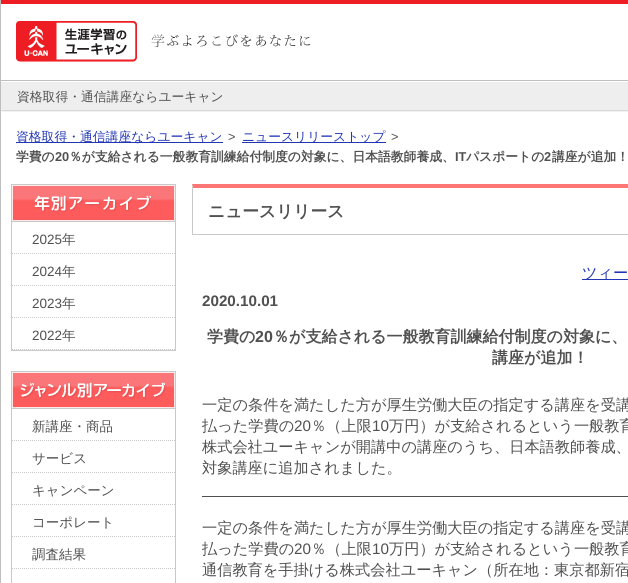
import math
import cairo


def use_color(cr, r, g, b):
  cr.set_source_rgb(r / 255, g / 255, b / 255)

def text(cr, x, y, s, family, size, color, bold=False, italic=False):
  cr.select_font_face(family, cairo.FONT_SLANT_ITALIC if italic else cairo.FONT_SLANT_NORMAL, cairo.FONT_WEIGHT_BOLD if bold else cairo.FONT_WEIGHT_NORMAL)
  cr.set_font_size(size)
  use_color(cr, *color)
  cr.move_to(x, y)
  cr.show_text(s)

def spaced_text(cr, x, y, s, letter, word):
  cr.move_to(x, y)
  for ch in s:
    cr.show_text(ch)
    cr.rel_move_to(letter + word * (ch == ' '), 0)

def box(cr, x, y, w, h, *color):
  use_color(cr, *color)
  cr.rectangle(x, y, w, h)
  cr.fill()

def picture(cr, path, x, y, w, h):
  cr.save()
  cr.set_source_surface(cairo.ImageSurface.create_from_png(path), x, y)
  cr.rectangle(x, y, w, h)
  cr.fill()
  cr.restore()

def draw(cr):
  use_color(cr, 255, 255, 255)
  cr.paint()
  box(cr, 0, 0, 1, 583, 190, 190, 190)
  box(cr, 1, 0, 627, 4, 238, 28, 35)
  box(cr, 1, 80, 627, 1, 190, 190, 190)
  picture(cr, "img_01.png", 16, 21, 121, 41)
  picture(cr, "img_02.png", 151, 34, 160, 13)
  box(cr, 1, 82, 627, 28, 238, 238, 238)
  picture(cr, "img_03.png", 1, 110, 627, 2)
  box(cr, 16, 142, 207, 1, 34, 54, 181)
  box(cr, 242, 142, 144, 1, 34, 54, 181)
  cr.rectangle(11.5, 184.5, 164, 166)
  use_color(cr, 201, 201, 201)
  cr.set_line_width(1)
  cr.stroke()
  picture(cr, "img_04.png", 12, 185, 163, 37)
  cr.new_path()
  cr.move_to(12, 253.5)
  cr.line_to(175, 253.5)
  cr.set_dash([1, 1])
  cr.stroke()
  cr.new_path()
  cr.move_to(12, 285.5)
  cr.line_to(175, 285.5)
  cr.stroke()
  cr.new_path()
  cr.move_to(12, 317.5)
  cr.line_to(175, 317.5)
  cr.stroke()
  cr.new_path()
  cr.move_to(12, 349.5)
  cr.line_to(175, 349.5)
  cr.stroke()
  cr.rectangle(11.5, 371.5, 164, 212)
  cr.set_dash([])
  cr.stroke()
  picture(cr, "img_05.png", 12, 372, 163, 37)
  cr.new_path()
  cr.move_to(12, 440.5)
  cr.line_to(175, 440.5)
  cr.set_dash([1, 1])
  cr.stroke()
  cr.new_path()
  cr.move_to(12, 472.5)
  cr.line_to(175, 472.5)
  cr.stroke()
  cr.new_path()
  cr.move_to(12, 504.5)
  cr.line_to(175, 504.5)
  cr.stroke()
  cr.new_path()
  cr.move_to(12, 536.5)
  cr.line_to(175, 536.5)
  cr.stroke()
  cr.new_path()
  cr.move_to(12, 568.5)
  cr.line_to(175, 568.5)
  cr.stroke()
  use_color(cr, 253, 118, 118)
  cr.new_path()
  cr.move_to(192, 184)
  cr.line_to(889, 184)
  cr.line_to(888, 188)
  cr.line_to(193, 188)
  cr.close_path()
  cr.fill()
  box(cr, 192, 234, 436, 1, 201, 201, 201)
  cr.new_path()
  cr.move_to(192, 235)
  cr.line_to(192, 184)
  cr.line_to(193, 188)
  cr.line_to(193, 234)
  cr.close_path()
  cr.fill()
  box(cr, 582, 279, 46, 1, 34, 54, 181)
  box(cr, 202, 496, 426, 1, 80, 80, 80)
  text(cr, 17, 101, "資格取得・通信講座ならユーキャン", "WenQuanYi Zen Hei Medium", 12.8, (80, 80, 80))
  text(cr, 16, 141, "資格取得・通信講座ならユーキャン", "WenQuanYi Zen Hei Medium", 12.8, (34, 54, 181))
  text(cr, 228, 141, ">", "Liberation Sans", 12.8, (80, 80, 80))
  text(cr, 242, 141, "ニュースリリーストップ", "WenQuanYi Zen Hei Medium", 12.8, (34, 54, 181))
  text(cr, 391, 141, ">", "Liberation Sans", 12.8, (80, 80, 80))
  text(cr, 16, 161, "学費の", "WenQuanYi Zen Hei", 12.8, (80, 80, 80), bold=True)
  text(cr, 55, 161, "20", "Liberation Sans", 12.8, (80, 80, 80), bold=True)
  text(cr, 69, 161, "％が支給される一般教育訓練給付制度の対象に、日本語教師養成、", "WenQuanYi Zen Hei", 12.8, (80, 80, 80), bold=True)
  text(cr, 455, 161, "IT", "Liberation Sans", 12.8, (80, 80, 80), bold=True)
  text(cr, 466, 161, "パスポートの", "WenQuanYi Zen Hei", 12.8, (80, 80, 80), bold=True)
  text(cr, 544, 161, "2", "Liberation Sans", 12.8, (80, 80, 80), bold=True)
  text(cr, 552, 161, "講座が追加！", "WenQuanYi Zen Hei", 12.8, (80, 80, 80), bold=True)
  text(cr, 32, 244, "2025", "Liberation Sans", 13.5, (80, 80, 80))
  text(cr, 62, 244, "年", "WenQuanYi Zen Hei Medium", 13.5, (80, 80, 80))
  text(cr, 32, 276, "2024", "Liberation Sans", 13.5, (80, 80, 80))
  text(cr, 62, 276, "年", "WenQuanYi Zen Hei Medium", 13.5, (80, 80, 80))
  text(cr, 32, 308, "2023", "Liberation Sans", 13.5, (80, 80, 80))
  text(cr, 62, 308, "年", "WenQuanYi Zen Hei Medium", 13.5, (80, 80, 80))
  text(cr, 32, 340, "2022", "Liberation Sans", 13.5, (80, 80, 80))
  text(cr, 62, 340, "年", "WenQuanYi Zen Hei Medium", 13.5, (80, 80, 80))
  text(cr, 32, 431, "新講座・商品", "WenQuanYi Zen Hei Medium", 13.5, (80, 80, 80))
  text(cr, 32, 463, "サービス", "WenQuanYi Zen Hei Medium", 13.5, (80, 80, 80))
  text(cr, 32, 495, "キャンペーン", "WenQuanYi Zen Hei Medium", 13.5, (80, 80, 80))
  text(cr, 32, 527, "コーポレート", "WenQuanYi Zen Hei Medium", 13.5, (80, 80, 80))
  text(cr, 32, 559, "調査結果", "WenQuanYi Zen Hei Medium", 13.5, (80, 80, 80))
  text(cr, 208, 217, "ニュースリリース", "WenQuanYi Zen Hei", 16.75, (80, 80, 80), bold=True)
  text(cr, 582, 278, "ツィー", "WenQuanYi Zen Hei Medium", 15.2, (34, 54, 181))
  text(cr, 202, 306, "2020.10.01", "Liberation Sans", 15.2, (80, 80, 80), bold=True)
  text(cr, 207, 342, "学費の", "WenQuanYi Zen Hei", 16, (80, 80, 80), bold=True)
  text(cr, 255, 342, "20", "Liberation Sans", 16, (80, 80, 80), bold=True)
  text(cr, 273, 342, "％が支給される一般教育訓練給付制度の対象に、", "WenQuanYi Zen Hei", 16, (80, 80, 80), bold=True)
  text(cr, 492, 363, "講座が追加！", "WenQuanYi Zen Hei", 16, (80, 80, 80), bold=True)
  text(cr, 202, 410, "一定の条件を満たした方が厚生労働大臣の指定する講座を受講", "WenQuanYi Zen Hei Medium", 15.2, (80, 80, 80))
  text(cr, 202, 431, "払った学費の", "WenQuanYi Zen Hei Medium", 15.2, (80, 80, 80))
  text(cr, 294, 431, "20", "Liberation Sans", 15.2, (80, 80, 80))
  text(cr, 311, 431, "％（上限", "WenQuanYi Zen Hei Medium", 15.2, (80, 80, 80))
  text(cr, 372, 431, "10", "Liberation Sans", 15.2, (80, 80, 80))
  text(cr, 389, 431, "万円）が支給されるという一般教育", "WenQuanYi Zen Hei Medium", 15.2, (80, 80, 80))
  text(cr, 202, 452, "株式会社ユーキャンが開講中の講座のうち、日本語教師養成、", "WenQuanYi Zen Hei Medium", 15.2, (80, 80, 80))
  text(cr, 202, 473, "対象講座に追加されました。", "WenQuanYi Zen Hei Medium", 15.2, (80, 80, 80))
  text(cr, 202, 533, "一定の条件を満たした方が厚生労働大臣の指定する講座を受講", "WenQuanYi Zen Hei Medium", 15.2, (80, 80, 80))
  text(cr, 202, 554, "払った学費の", "WenQuanYi Zen Hei Medium", 15.2, (80, 80, 80))
  text(cr, 294, 554, "20", "Liberation Sans", 15.2, (80, 80, 80))
  text(cr, 311, 554, "％（上限", "WenQuanYi Zen Hei Medium", 15.2, (80, 80, 80))
  text(cr, 372, 554, "10", "Liberation Sans", 15.2, (80, 80, 80))
  text(cr, 389, 554, "万円）が支給されるという一般教育", "WenQuanYi Zen Hei Medium", 15.2, (80, 80, 80))
  spaced_text(cr, 202, 575, "通信教育を手掛ける株式会社ユーキャン（所在地：東京都新宿", 0, -1)


surface = cairo.ImageSurface(cairo.FORMAT_RGB24, 628, 583)
cr = cairo.Context(surface)
options = cairo.FontOptions()
options.set_hint_metrics(cairo.HINT_METRICS_OFF)
options.set_hint_style(cairo.HINT_STYLE_NONE)
cr.set_font_options(options)
cr.set_miter_limit(4)
draw(cr)
surface.write_to_png("out.png")
